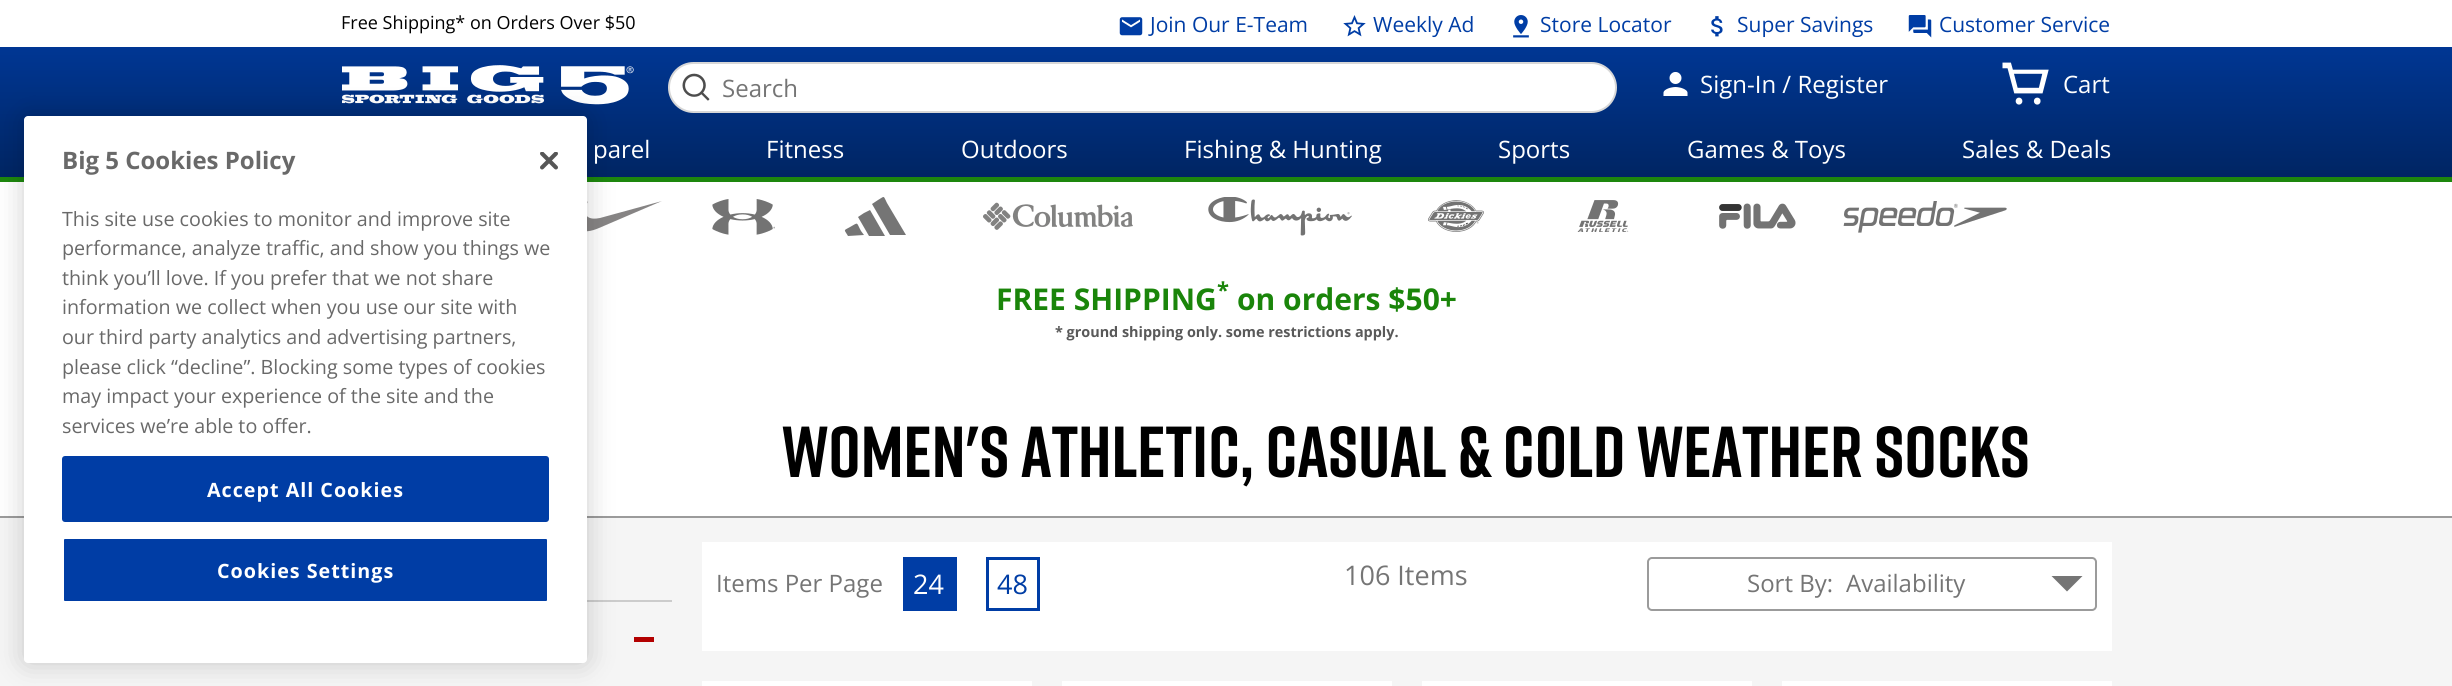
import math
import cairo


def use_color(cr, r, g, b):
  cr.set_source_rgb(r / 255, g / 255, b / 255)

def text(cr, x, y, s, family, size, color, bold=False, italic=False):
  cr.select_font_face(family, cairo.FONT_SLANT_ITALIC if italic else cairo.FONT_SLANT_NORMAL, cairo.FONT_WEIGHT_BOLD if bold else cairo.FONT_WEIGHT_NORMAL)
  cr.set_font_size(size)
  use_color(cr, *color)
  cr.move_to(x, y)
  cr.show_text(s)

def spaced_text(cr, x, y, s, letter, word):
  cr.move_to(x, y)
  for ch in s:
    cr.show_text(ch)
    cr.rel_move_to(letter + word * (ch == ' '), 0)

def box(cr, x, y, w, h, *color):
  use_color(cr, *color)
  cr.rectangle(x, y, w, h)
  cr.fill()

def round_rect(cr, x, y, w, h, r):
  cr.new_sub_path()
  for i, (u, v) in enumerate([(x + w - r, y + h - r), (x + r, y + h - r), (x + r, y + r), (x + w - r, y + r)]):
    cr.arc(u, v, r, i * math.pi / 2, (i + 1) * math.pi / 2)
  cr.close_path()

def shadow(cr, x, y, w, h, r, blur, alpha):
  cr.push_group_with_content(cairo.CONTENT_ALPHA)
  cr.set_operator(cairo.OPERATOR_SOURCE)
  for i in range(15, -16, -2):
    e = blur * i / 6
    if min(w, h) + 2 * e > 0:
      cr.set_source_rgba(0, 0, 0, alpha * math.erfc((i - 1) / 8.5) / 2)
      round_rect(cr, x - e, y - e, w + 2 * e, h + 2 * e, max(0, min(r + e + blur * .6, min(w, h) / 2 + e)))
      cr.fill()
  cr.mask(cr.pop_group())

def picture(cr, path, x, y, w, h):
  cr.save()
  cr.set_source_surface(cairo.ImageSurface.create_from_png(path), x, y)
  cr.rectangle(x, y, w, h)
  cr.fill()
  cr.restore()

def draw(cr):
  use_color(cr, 255, 255, 255)
  cr.paint()
  gradient = cairo.LinearGradient(1226, 0, 1226, 177)
  gradient.add_color_stop_rgba(0, 0, 0.239, 0.647, 1)
  gradient.add_color_stop_rgba(1, 0, 0.145, 0.388, 1)
  cr.set_source(gradient)
  cr.rectangle(0, 47, 2452, 130)
  cr.fill()
  box(cr, 0, 177, 2452, 5, 29, 135, 13)
  picture(cr, "img_07.png", 342, 65, 292, 40)
  use_color(cr, 134, 132, 132)
  cr.new_path()
  cr.move_to(599, 228)
  cr.curve_to(592, 231, 582, 234, 578, 227)
  cr.curve_to(575, 223, 577, 217, 580, 211)
  cr.curve_to(583, 208, 585, 204, 588, 201)
  cr.curve_to(587, 204, 582, 213, 588, 217)
  cr.curve_to(591, 219, 595, 219, 600, 218)
  cr.line_to(662, 201)
  cr.close_path()
  cr.fill()
  box(cr, 0, 518, 2452, 168, 245, 245, 245)
  box(cr, 0, 516, 2452, 2, 155, 155, 155)
  box(cr, 587, 600, 85, 2, 204, 204, 204)
  use_color(cr, 0, 0, 0)
  shadow(cr, 24, 116, 563, 547, 4, 13.5, 0.2)
  use_color(cr, 255, 255, 255)
  round_rect(cr, 24, 116, 563, 547, 4)
  cr.fill()
  picture(cr, "img_01.png", 540, 152, 18, 18)
  use_color(cr, 0, 61, 165)
  round_rect(cr, 63, 457, 485, 64, 2)
  cr.fill_preserve()
  cr.stroke()
  round_rect(cr, 63, 538, 485, 64, 2)
  cr.fill_preserve()
  use_color(cr, 255, 255, 255)
  cr.stroke()
  picture(cr, "img_02.png", 1119, 17, 24, 19)
  picture(cr, "img_03.png", 1343, 15, 23, 22)
  picture(cr, "img_04.png", 1513, 15, 16, 23)
  picture(cr, "img_05.png", 1711, 16, 12, 21)
  picture(cr, "img_06.png", 1908, 15, 24, 23)
  round_rect(cr, 669, 63, 947, 49, 24.5)
  cr.fill_preserve()
  use_color(cr, 215, 215, 215)
  cr.stroke()
  picture(cr, "img_08.png", 682, 73, 28, 28)
  picture(cr, "img_09.png", 1663, 72, 25, 24)
  picture(cr, "img_10.png", 2002, 62, 47, 43)
  picture(cr, "img_11.png", 712, 199, 63, 36)
  use_color(cr, 117, 117, 117)
  cr.set_fill_rule(cairo.FILL_RULE_EVEN_ODD)
  cr.new_path()
  cr.move_to(878, 200)
  cr.line_to(872, 204)
  cr.line_to(890, 235)
  cr.line_to(906, 235)
  cr.line_to(887, 203)
  cr.curve_to(883, 195, 885, 196, 878, 200)
  cr.move_to(864, 213)
  cr.line_to(858, 217)
  cr.line_to(869, 236)
  cr.line_to(885, 236)
  cr.line_to(870, 210)
  cr.line_to(864, 213)
  cr.move_to(850, 227)
  cr.curve_to(843, 231, 844, 229, 848, 236)
  cr.line_to(864, 235)
  cr.line_to(861, 231)
  cr.curve_to(856, 222, 859, 222, 850, 227)
  cr.fill()
  picture(cr, "img_12.png", 983, 202, 150, 28)
  picture(cr, "img_13.png", 1208, 197, 144, 39)
  picture(cr, "img_14.png", 1428, 200, 56, 32)
  picture(cr, "img_15.png", 1577, 200, 52, 32)
  picture(cr, "img_16.png", 1719, 203, 77, 26)
  picture(cr, "img_17.png", 1843, 201, 164, 32)
  box(cr, 702, 542, 1410, 109, 255, 255, 255)
  box(cr, 903, 557, 54, 54, 0, 61, 165)
  cr.rectangle(987.5, 558.5, 51, 51)
  cr.set_line_width(3)
  cr.stroke()
  round_rect(cr, 1648, 558, 448, 52, 4)
  use_color(cr, 155, 155, 155)
  cr.set_line_width(2)
  cr.stroke()
  use_color(cr, 117, 117, 117)
  cr.set_fill_rule(cairo.FILL_RULE_WINDING)
  cr.new_path()
  cr.move_to(2051.5, 576)
  cr.line_to(2082.5, 576)
  cr.line_to(2067, 591.5)
  cr.close_path()
  cr.fill()
  box(cr, 702, 681, 330, 5, 255, 255, 255)
  box(cr, 1062, 681, 330, 5, 255, 255, 255)
  box(cr, 1422, 681, 330, 5, 255, 255, 255)
  box(cr, 1782, 681, 330, 5, 255, 255, 255)
  box(cr, 634, 637, 20, 5, 179, 0, 0)
  text(cr, 62, 169, "Big 5 Cookies Policy", "Open Sans", 24, (105, 105, 105), bold=True)
  text(cr, 62, 226, "This site use cookies to monitor and improve site", "Open Sans", 19.7, (105, 105, 105))
  text(cr, 62, 255, "performance, analyze traffic, and show you things we", "Open Sans", 19.7, (105, 105, 105))
  text(cr, 62, 285, "think you’ll love. If you prefer that we not share", "Open Sans", 19.7, (105, 105, 105))
  text(cr, 62, 314, "information we collect when you use our site with", "Open Sans", 19.7, (105, 105, 105))
  text(cr, 62, 344, "our third party analytics and advertising partners,", "Open Sans", 19.7, (105, 105, 105))
  text(cr, 62, 374, "please click “decline”. Blocking some types of cookies", "Open Sans", 19.7, (105, 105, 105))
  text(cr, 62, 403, "may impact your experience of the site and the", "Open Sans", 19.7, (105, 105, 105))
  text(cr, 62, 433, "services we’re able to offer.", "Open Sans", 19.7, (105, 105, 105))
  cr.select_font_face("Open Sans", cairo.FONT_SLANT_NORMAL, cairo.FONT_WEIGHT_BOLD)
  use_color(cr, 255, 255, 255)
  spaced_text(cr, 207, 497, "Accept All Cookies", 1, 0)
  spaced_text(cr, 217, 578, "Cookies Settings", 1, 0)
  text(cr, 341, 29, "Free Shipping* on Orders Over $50", "Open Sans", 18, (0, 0, 0))
  text(cr, 1150, 32, "Join Our E-Team", "Open Sans", 21, (0, 61, 165))
  text(cr, 1373, 32, "Weekly Ad", "Open Sans", 21, (0, 61, 165))
  text(cr, 1540, 32, "Store Locator", "Open Sans", 21, (0, 61, 165))
  text(cr, 1737, 32, "Super Savings", "Open Sans", 21, (0, 61, 165))
  text(cr, 1939, 32, "Customer Service", "Open Sans", 21, (0, 61, 165))
  text(cr, 722, 97, "Search", "Open Sans", 24, (117, 117, 117))
  text(cr, 1700, 93, "Sign-In / Register", "Open Sans", 24, (255, 255, 255))
  text(cr, 2063, 93, "Cart", "Open Sans", 24, (255, 255, 255))
  text(cr, 593, 158, "parel", "Open Sans", 24, (255, 255, 255))
  text(cr, 766, 158, "Fitness", "Open Sans", 24, (255, 255, 255))
  text(cr, 961, 158, "Outdoors", "Open Sans", 24, (255, 255, 255))
  text(cr, 1184, 158, "Fishing & Hunting", "Open Sans", 24, (255, 255, 255))
  text(cr, 1498, 158, "Sports", "Open Sans", 24, (255, 255, 255))
  text(cr, 1687, 158, "Games & Toys", "Open Sans", 24, (255, 255, 255))
  text(cr, 1962, 158, "Sales & Deals", "Open Sans", 24, (255, 255, 255))
  text(cr, 996, 310, "FREE SHIPPING", "Open Sans", 30, (26, 133, 10), bold=True)
  text(cr, 1217, 298, "*", "Open Sans", 22, (26, 133, 10), bold=True)
  text(cr, 1237, 310, "on orders $50+", "Open Sans", 30, (26, 133, 10), bold=True)
  text(cr, 1055, 337, "* ground shipping only. some restrictions apply.", "Open Sans", 14.4, (89, 89, 89), bold=True)
  text(cr, 782, 477, "WOMEN'S ATHLETIC, CASUAL & COLD WEATHER SOCKS", "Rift", 72, (0, 0, 0), bold=True)
  text(cr, 716, 592, "Items Per Page", "Open Sans", 24, (117, 117, 117))
  text(cr, 913, 594, "24", "Open Sans", 27, (255, 255, 255))
  text(cr, 997, 594, "48", "Open Sans", 27, (0, 61, 165))
  text(cr, 1344, 585, "106 Items", "Open Sans", 27, (117, 117, 117))
  text(cr, 1747, 592, "Sort By:", "Open Sans", 24, (117, 117, 117))
  text(cr, 1846, 592, "Availability", "Open Sans", 24, (117, 117, 117))


surface = cairo.ImageSurface(cairo.FORMAT_RGB24, 2452, 686)
cr = cairo.Context(surface)
options = cairo.FontOptions()
options.set_hint_metrics(cairo.HINT_METRICS_OFF)
options.set_hint_style(cairo.HINT_STYLE_NONE)
cr.set_font_options(options)
cr.set_miter_limit(4)
draw(cr)
surface.write_to_png("out.png")
